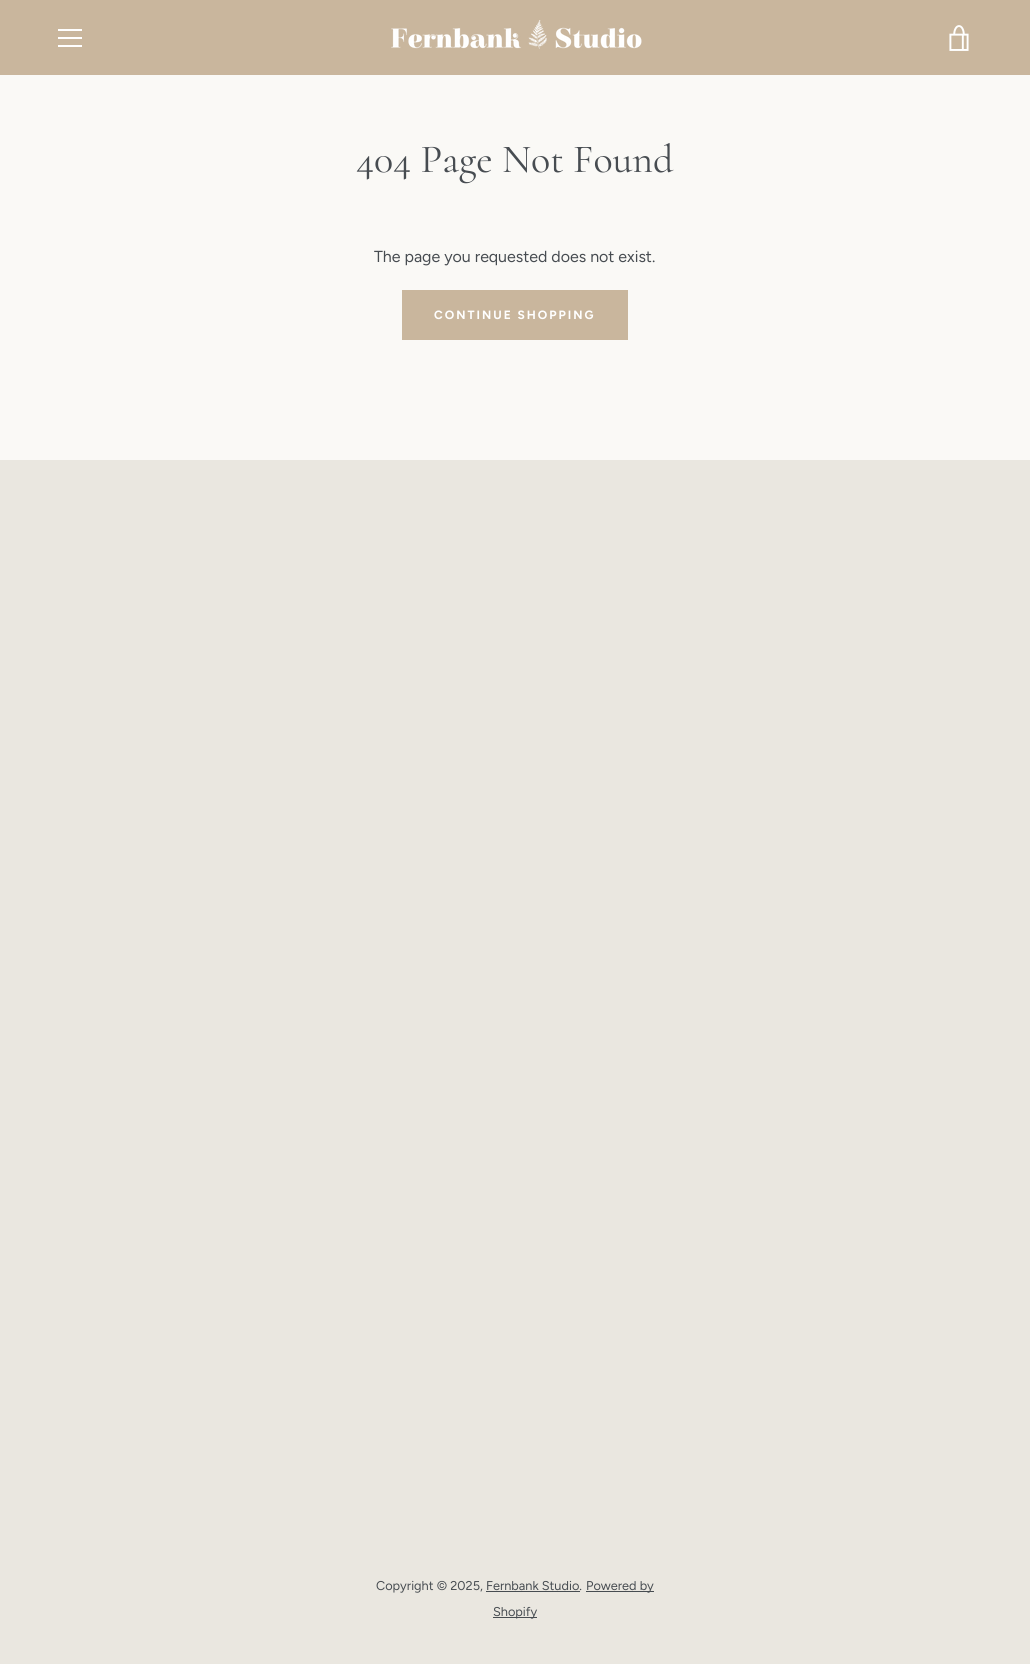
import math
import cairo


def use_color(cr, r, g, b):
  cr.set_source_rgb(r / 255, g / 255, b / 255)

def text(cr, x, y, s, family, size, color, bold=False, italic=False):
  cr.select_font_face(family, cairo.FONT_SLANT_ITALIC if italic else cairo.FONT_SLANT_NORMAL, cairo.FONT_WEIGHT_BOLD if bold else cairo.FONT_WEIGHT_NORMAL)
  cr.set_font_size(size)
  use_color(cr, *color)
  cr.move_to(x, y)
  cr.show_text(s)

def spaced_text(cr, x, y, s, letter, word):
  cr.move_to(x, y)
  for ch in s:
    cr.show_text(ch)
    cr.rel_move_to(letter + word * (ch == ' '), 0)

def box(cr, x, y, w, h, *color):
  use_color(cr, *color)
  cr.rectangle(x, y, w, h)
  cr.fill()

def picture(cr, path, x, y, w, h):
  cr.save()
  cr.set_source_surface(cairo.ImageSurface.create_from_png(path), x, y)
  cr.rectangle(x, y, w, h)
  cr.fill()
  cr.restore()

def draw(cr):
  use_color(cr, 234, 231, 224)
  cr.paint()
  box(cr, 0, 75, 1030, 385, 250, 249, 246)
  box(cr, 0, 0, 1030, 75, 201, 182, 157)
  box(cr, 58, 29, 24, 2, 255, 255, 255)
  box(cr, 58, 37, 24, 2, 255, 255, 255)
  box(cr, 58, 45, 24, 2, 255, 255, 255)
  picture(cr, "img_01.png", 391, 20, 251, 29)
  picture(cr, "img_02.png", 949, 25, 20, 26)
  box(cr, 402, 290, 226, 50, 201, 182, 157)
  box(cr, 486, 1591, 94, 1, 71, 76, 81)
  box(cr, 586, 1591, 68, 1, 71, 76, 81)
  box(cr, 493, 1617, 44, 1, 71, 76, 81)
  text(cr, 356, 172, "404 Page Not Found", "Cormorant", 40, (71, 76, 81))
  text(cr, 374, 262, "The page you requested does not exist.", "Figtree", 16, (71, 76, 81))
  cr.select_font_face("Figtree", cairo.FONT_SLANT_NORMAL, cairo.FONT_WEIGHT_BOLD)
  cr.set_font_size(12)
  use_color(cr, 255, 255, 255)
  spaced_text(cr, 434, 319, "CONTINUE SHOPPING", 2, 0)
  text(cr, 376, 1590, "Copyright © 2025, Fernbank Studio.", "Figtree", 12.75, (71, 76, 81))
  text(cr, 586, 1590, "Powered by", "Figtree", 12.75, (71, 76, 81))
  text(cr, 493, 1616, "Shopify", "Figtree", 12.75, (71, 76, 81))


surface = cairo.ImageSurface(cairo.FORMAT_RGB24, 1030, 1664)
cr = cairo.Context(surface)
options = cairo.FontOptions()
options.set_hint_metrics(cairo.HINT_METRICS_OFF)
options.set_hint_style(cairo.HINT_STYLE_NONE)
cr.set_font_options(options)
cr.set_miter_limit(4)
draw(cr)
surface.write_to_png("out.png")
